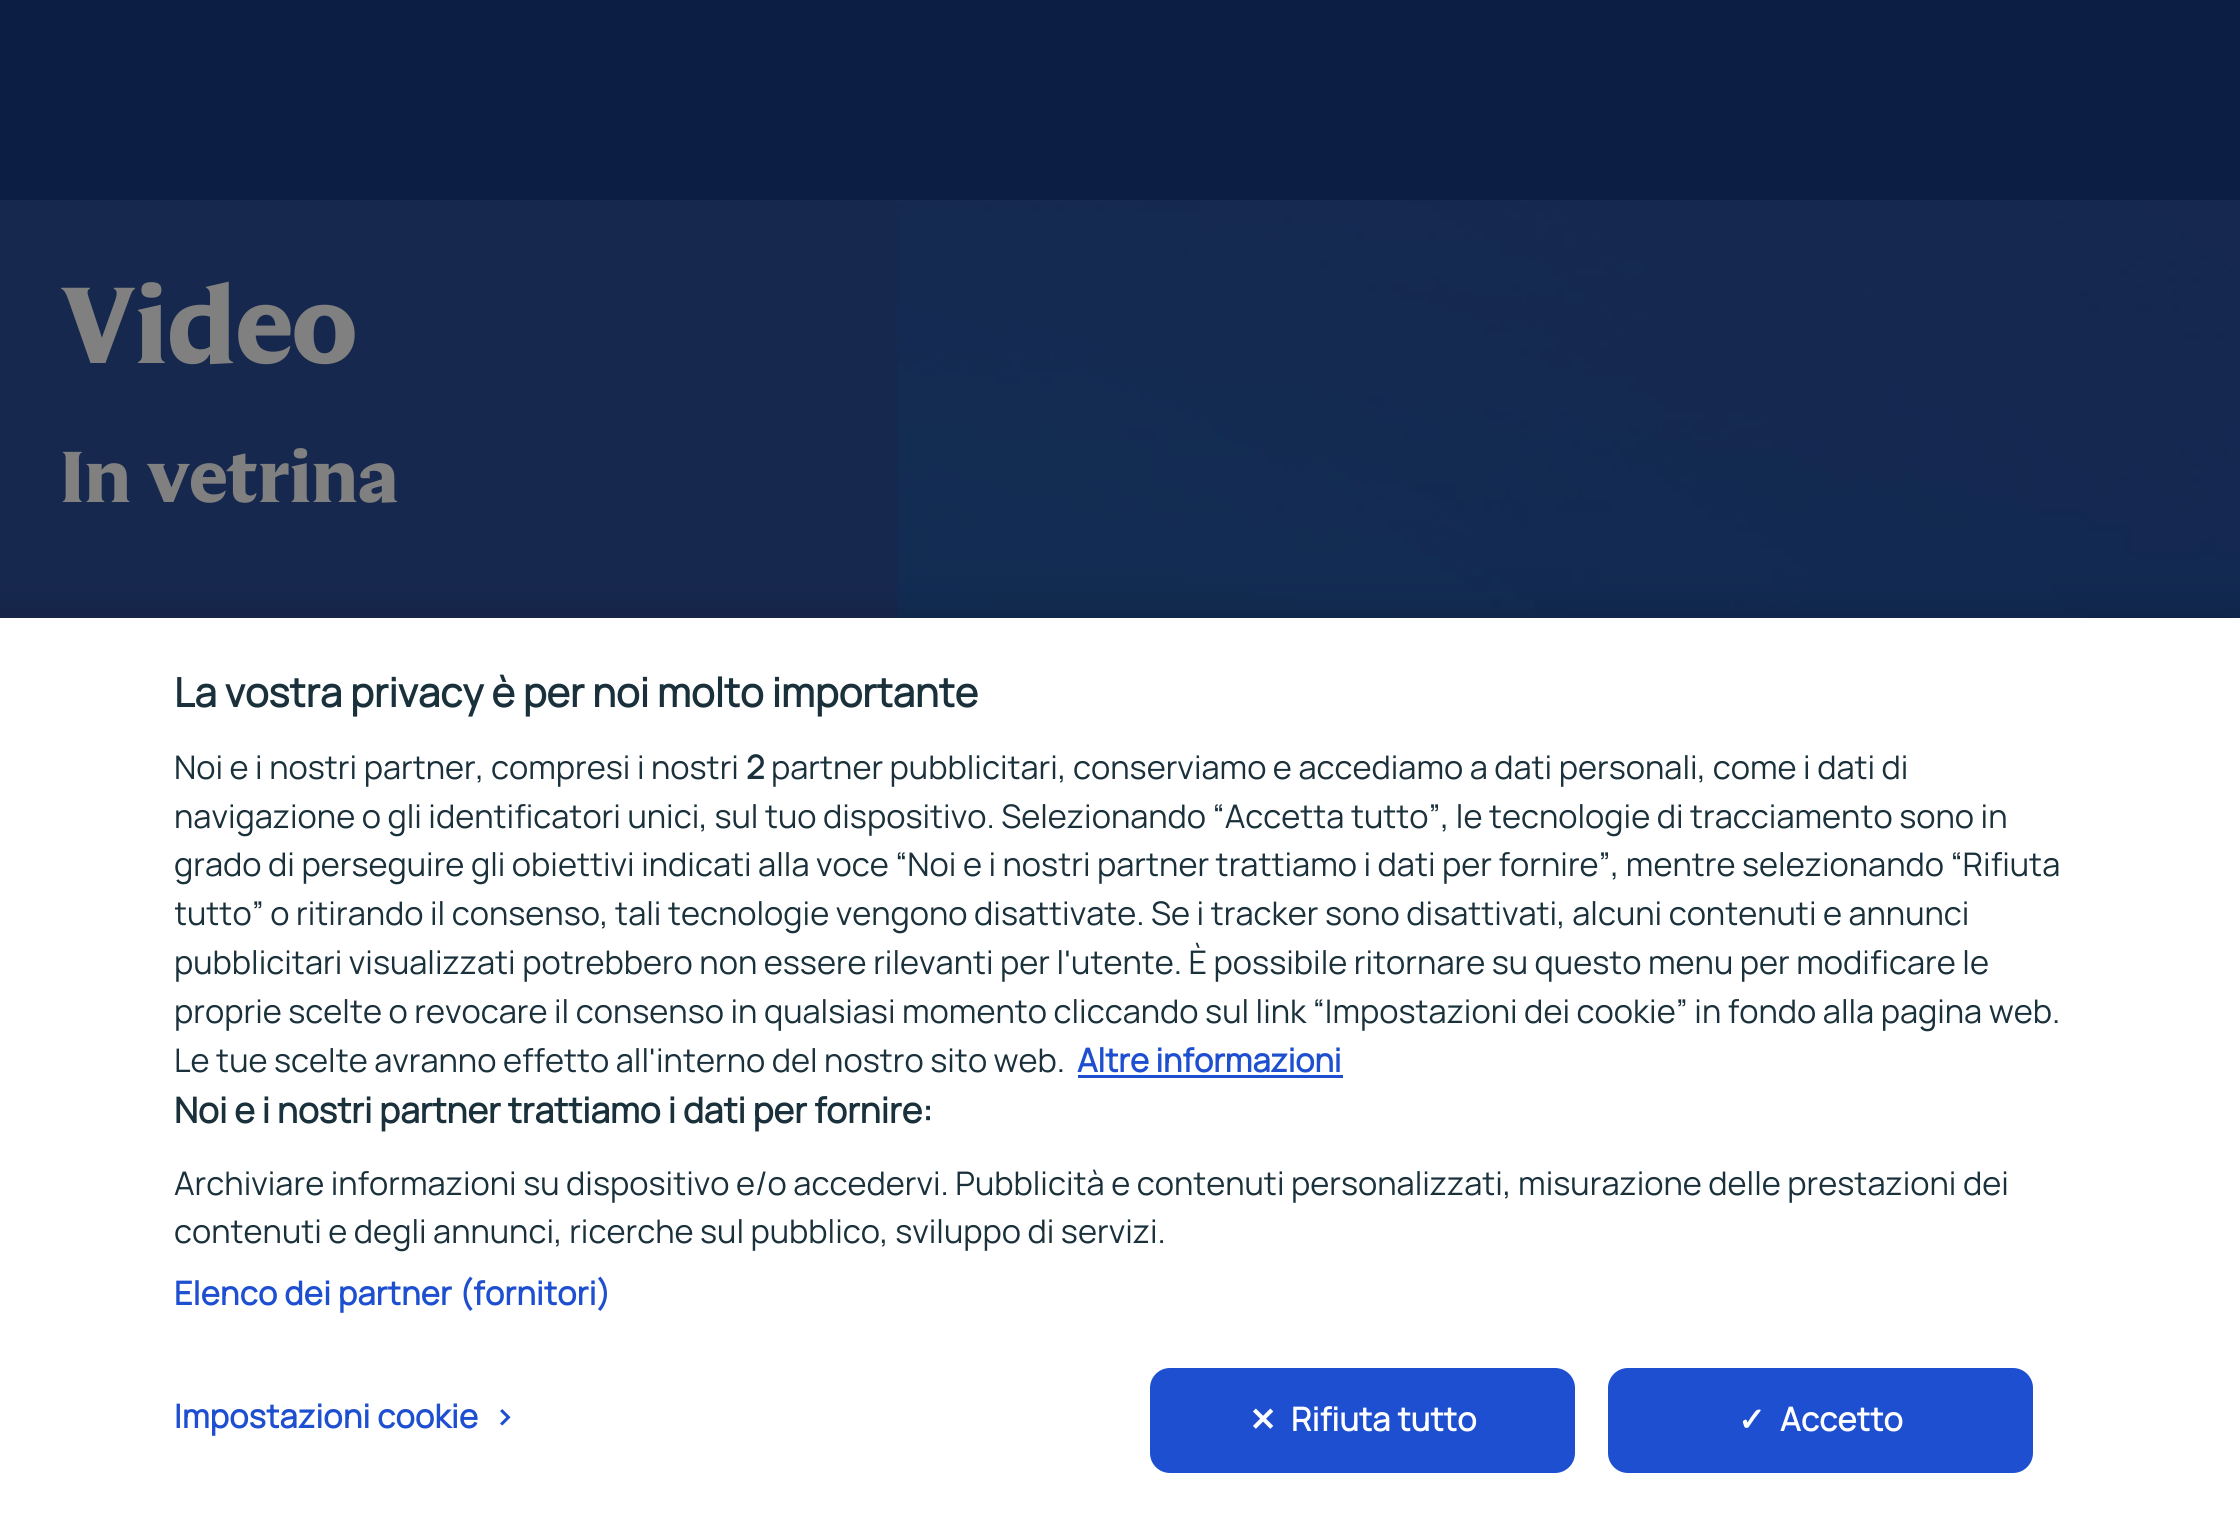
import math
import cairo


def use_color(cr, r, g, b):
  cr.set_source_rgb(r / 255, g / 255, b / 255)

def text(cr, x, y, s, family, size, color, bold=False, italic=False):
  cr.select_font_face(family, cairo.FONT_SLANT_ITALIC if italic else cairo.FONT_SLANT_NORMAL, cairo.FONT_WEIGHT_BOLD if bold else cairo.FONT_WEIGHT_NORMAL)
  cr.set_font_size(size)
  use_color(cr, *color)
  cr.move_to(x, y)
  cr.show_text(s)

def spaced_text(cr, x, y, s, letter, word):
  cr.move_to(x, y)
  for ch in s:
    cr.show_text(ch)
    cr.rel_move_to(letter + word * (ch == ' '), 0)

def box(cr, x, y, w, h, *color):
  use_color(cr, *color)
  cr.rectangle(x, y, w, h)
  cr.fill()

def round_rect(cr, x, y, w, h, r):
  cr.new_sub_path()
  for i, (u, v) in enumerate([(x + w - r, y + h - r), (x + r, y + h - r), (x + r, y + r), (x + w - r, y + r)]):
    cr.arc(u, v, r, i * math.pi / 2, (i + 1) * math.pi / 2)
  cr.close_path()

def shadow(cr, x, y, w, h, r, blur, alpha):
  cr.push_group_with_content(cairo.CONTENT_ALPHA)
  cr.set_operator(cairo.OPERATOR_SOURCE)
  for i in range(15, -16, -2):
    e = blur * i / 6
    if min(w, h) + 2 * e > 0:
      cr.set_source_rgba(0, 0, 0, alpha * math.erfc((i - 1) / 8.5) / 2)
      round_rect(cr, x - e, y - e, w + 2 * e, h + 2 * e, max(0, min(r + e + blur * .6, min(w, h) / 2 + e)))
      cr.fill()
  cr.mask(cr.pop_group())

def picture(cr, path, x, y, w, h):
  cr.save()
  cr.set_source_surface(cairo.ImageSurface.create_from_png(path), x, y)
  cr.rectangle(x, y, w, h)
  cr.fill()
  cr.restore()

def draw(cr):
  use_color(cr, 23, 40, 79)
  cr.paint()
  box(cr, 0, 0, 2240, 200, 13, 30, 69)
  picture(cr, "img_01.png", 897, 200, 1343, 418)
  use_color(cr, 0, 0, 0)
  shadow(cr, 0, 618, 2240, 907, 0, 22.5, 0.2)
  box(cr, 0, 618, 2240, 905, 255, 255, 255)
  box(cr, 1078, 1075, 265, 3, 30, 79, 208)
  round_rect(cr, 1151.5, 1369.5, 422, 102, 18.5)
  cr.fill_preserve()
  cr.set_line_width(3)
  cr.stroke()
  round_rect(cr, 1609.5, 1369.5, 422, 102, 18.5)
  cr.fill_preserve()
  cr.stroke()
  text(cr, 60, 363, "Video", "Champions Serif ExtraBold", 120, (128, 128, 128))
  text(cr, 60, 502, "In vetrina", "Champions Serif ExtraBold", 80, (128, 128, 128))
  text(cr, 174, 707, "La vostra privacy è per noi molto importante", "Manrope", 40, (26, 49, 60), bold=True)
  text(cr, 174, 779, "Noi e i nostri partner, compresi i nostri", "Manrope", 32.52, (26, 49, 60))
  text(cr, 746, 779, "2", "Manrope", 32.52, (26, 49, 60), bold=True)
  text(cr, 771, 779, "partner pubblicitari, conserviamo e accediamo a dati personali, come i dati di", "Manrope", 32.52, (26, 49, 60))
  text(cr, 174, 828, "navigazione o gli identificatori unici, sul tuo dispositivo. Selezionando “Accetta tutto”, le tecnologie di tracciamento sono in", "Manrope", 32.52, (26, 49, 60))
  text(cr, 174, 876, "grado di perseguire gli obiettivi indicati alla voce “Noi e i nostri partner trattiamo i dati per fornire”, mentre selezionando “Rifiuta", "Manrope", 32.52, (26, 49, 60))
  cr.save()
  cr.rectangle(175, 668, 1890, 675)
  cr.clip()
  text(cr, 174, 925, "tutto” o ritirando il consenso, tali tecnologie vengono disattivate. Se i tracker sono disattivati, alcuni contenuti e annunci", "Manrope", 32.52, (26, 49, 60))
  cr.restore()
  text(cr, 174, 974, "pubblicitari visualizzati potrebbero non essere rilevanti per l'utente. È possibile ritornare su questo menu per modificare le", "Manrope", 32.52, (26, 49, 60))
  text(cr, 174, 1023, "proprie scelte o revocare il consenso in qualsiasi momento cliccando sul link “Impostazioni dei cookie” in fondo alla pagina web.", "Manrope", 32.52, (26, 49, 60))
  text(cr, 174, 1072, "Le tue scelte avranno effetto all'interno del nostro sito web.", "Manrope", 32.52, (26, 49, 60))
  text(cr, 1077, 1072, "Altre informazioni", "Manrope", 32.52, (30, 79, 208), bold=True)
  text(cr, 174, 1123, "Noi e i nostri partner trattiamo i dati per fornire:", "Manrope", 35.2, (26, 49, 60), bold=True)
  text(cr, 174, 1195, "Archiviare informazioni su dispositivo e/o accedervi. Pubblicità e contenuti personalizzati, misurazione delle prestazioni dei", "Manrope", 32.52, (26, 49, 60))
  text(cr, 174, 1243, "contenuti e degli annunci, ricerche sul pubblico, sviluppo di servizi.", "Manrope", 32.52, (26, 49, 60))
  cr.select_font_face("Manrope", cairo.FONT_SLANT_NORMAL, cairo.FONT_WEIGHT_BOLD)
  use_color(cr, 30, 79, 208)
  spaced_text(cr, 174, 1305, "Elenco dei partner (fornitori)", 0.3, 0)
  spaced_text(cr, 174, 1428, "Impostazioni cookie", 0.3, 0)
  spaced_text(cr, 494, 1428, ">", 0.3, 0)
  cr.select_font_face("DejaVu Sans", cairo.FONT_SLANT_NORMAL, cairo.FONT_WEIGHT_BOLD)
  use_color(cr, 255, 255, 255)
  spaced_text(cr, 1249, 1431, "✕", 0.3, 0)
  cr.select_font_face("Manrope", cairo.FONT_SLANT_NORMAL, cairo.FONT_WEIGHT_BOLD)
  spaced_text(cr, 1291, 1431, "Rifiuta tutto", 0.3, 0)
  cr.select_font_face("DejaVu Sans", cairo.FONT_SLANT_NORMAL, cairo.FONT_WEIGHT_BOLD)
  spaced_text(cr, 1738, 1431, "✓", 0.3, 0)
  cr.select_font_face("Manrope", cairo.FONT_SLANT_NORMAL, cairo.FONT_WEIGHT_BOLD)
  spaced_text(cr, 1780, 1431, "Accetto", 0.3, 0)


surface = cairo.ImageSurface(cairo.FORMAT_RGB24, 2240, 1523)
cr = cairo.Context(surface)
options = cairo.FontOptions()
options.set_hint_metrics(cairo.HINT_METRICS_OFF)
options.set_hint_style(cairo.HINT_STYLE_NONE)
cr.set_font_options(options)
cr.set_miter_limit(4)
draw(cr)
surface.write_to_png("out.png")
